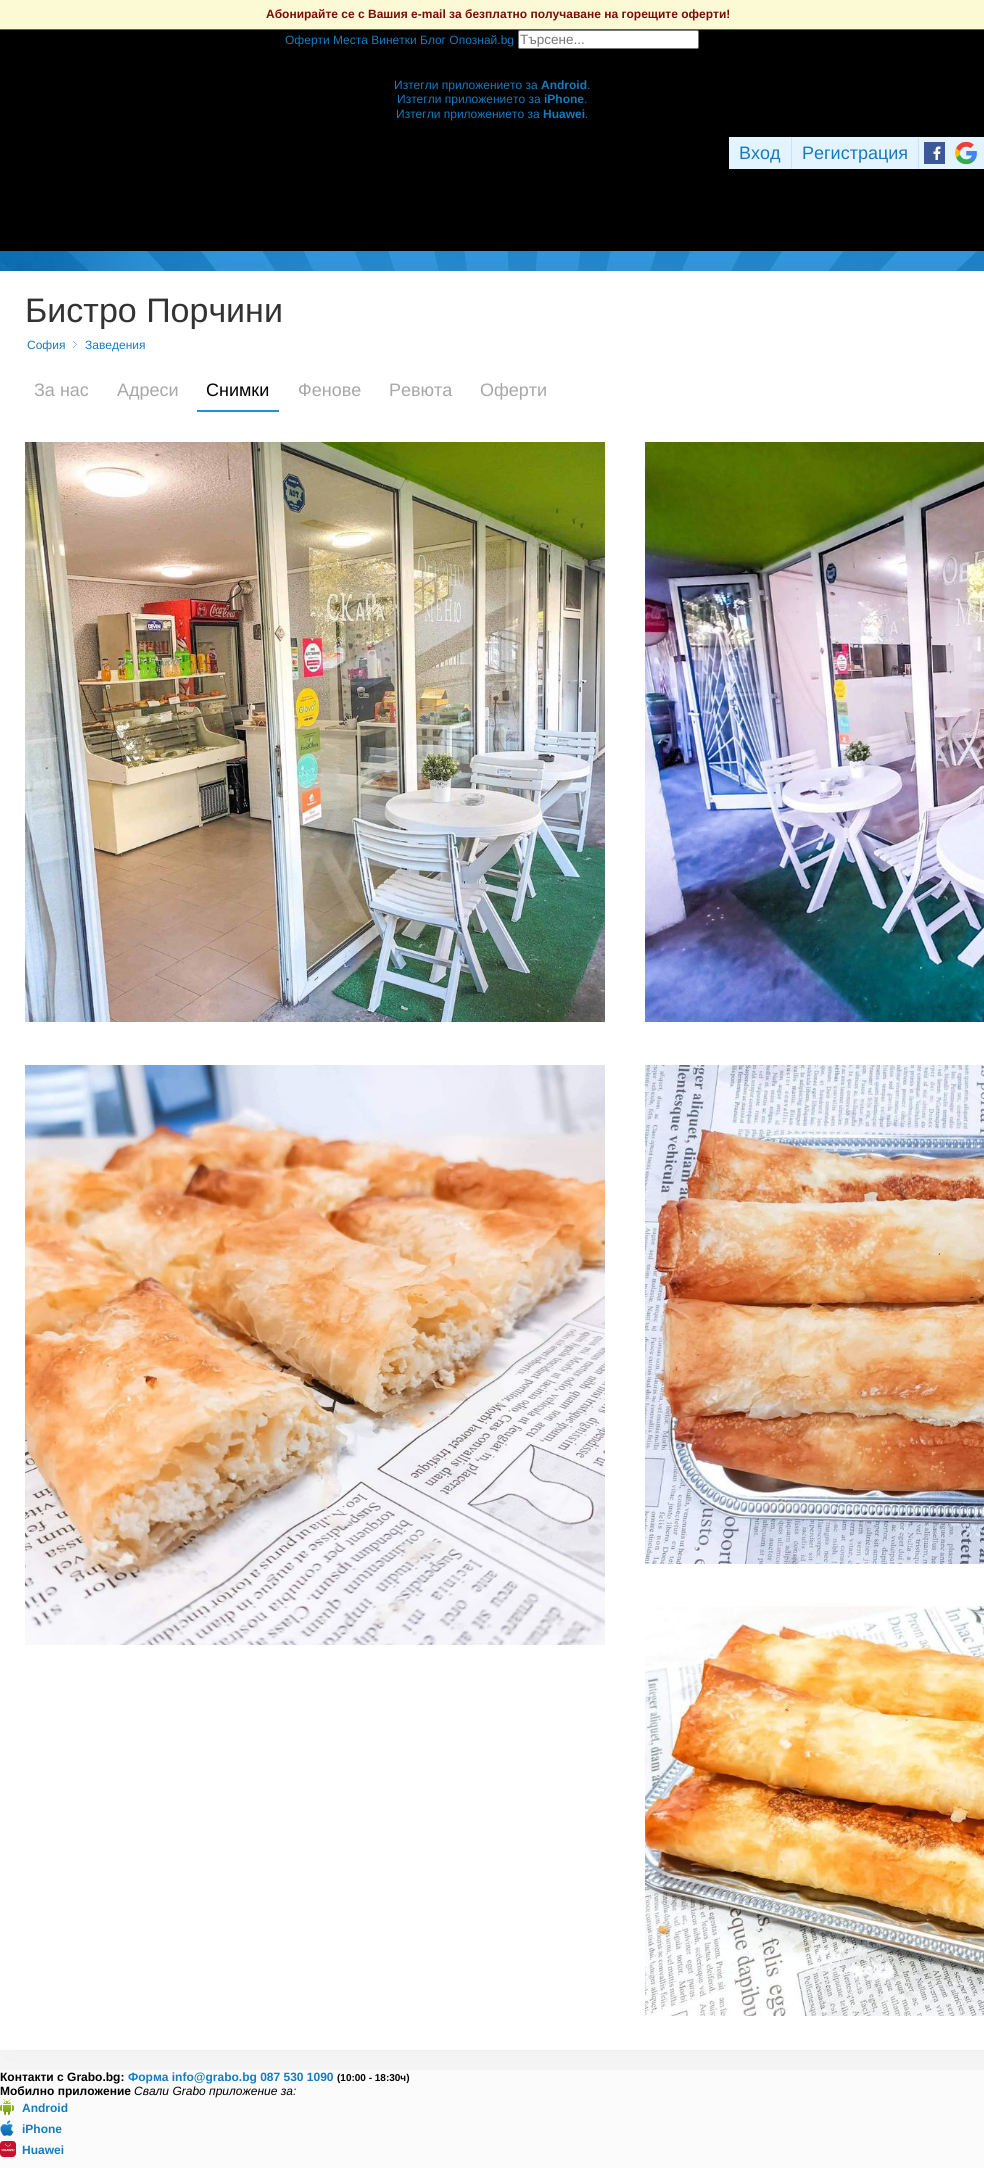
import math
import cairo


def use_color(cr, r, g, b):
  cr.set_source_rgb(r / 255, g / 255, b / 255)

def text(cr, x, y, s, family, size, color, bold=False, italic=False):
  cr.select_font_face(family, cairo.FONT_SLANT_ITALIC if italic else cairo.FONT_SLANT_NORMAL, cairo.FONT_WEIGHT_BOLD if bold else cairo.FONT_WEIGHT_NORMAL)
  cr.set_font_size(size)
  use_color(cr, *color)
  cr.move_to(x, y)
  cr.show_text(s)

def box(cr, x, y, w, h, *color):
  use_color(cr, *color)
  cr.rectangle(x, y, w, h)
  cr.fill()

def round_rect(cr, x, y, w, h, r):
  cr.new_sub_path()
  for i, (u, v) in enumerate([(x + w - r, y + h - r), (x + r, y + h - r), (x + r, y + r), (x + w - r, y + r)]):
    cr.arc(u, v, r, i * math.pi / 2, (i + 1) * math.pi / 2)
  cr.close_path()

def shadow(cr, x, y, w, h, r, blur, alpha):
  cr.push_group_with_content(cairo.CONTENT_ALPHA)
  cr.set_operator(cairo.OPERATOR_SOURCE)
  for i in range(15, -16, -2):
    e = blur * i / 6
    if min(w, h) + 2 * e > 0:
      cr.set_source_rgba(0, 0, 0, alpha * math.erfc((i - 1) / 8.5) / 2)
      round_rect(cr, x - e, y - e, w + 2 * e, h + 2 * e, max(0, min(r + e + blur * .6, min(w, h) / 2 + e)))
      cr.fill()
  cr.mask(cr.pop_group())

def picture(cr, path, x, y, w, h):
  cr.save()
  cr.set_source_surface(cairo.ImageSurface.create_from_png(path), x, y)
  cr.rectangle(x, y, w, h)
  cr.fill()
  cr.restore()

def draw(cr):
  use_color(cr, 0, 0, 0)
  cr.paint()
  box(cr, 0, 0, 984, 29, 252, 250, 212)
  box(cr, 0, 29, 984, 1, 0, 119, 201)
  use_color(cr, 255, 255, 255)
  round_rect(cr, 518.5, 30.5, 180, 18, 1.5)
  cr.fill_preserve()
  use_color(cr, 118, 118, 118)
  cr.set_line_width(1)
  cr.stroke()
  box(cr, 791, 137, 1, 32, 194, 230, 253)
  box(cr, 918, 137, 1, 32, 194, 230, 253)
  box(cr, 919, 137, 65, 32, 227, 244, 255)
  picture(cr, "img_01.png", 955, 142, 22, 22)
  box(cr, 729, 137, 62, 32, 227, 244, 255)
  box(cr, 792, 137, 126, 32, 227, 244, 255)
  picture(cr, "img_02.png", 924, 142, 21, 22)
  box(cr, 0, 2050, 984, 118, 251, 251, 251)
  picture(cr, "img_03.png", 0, 251, 984, 20)
  cr.save()
  cr.rectangle(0, 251, 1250, 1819)
  cr.clip()
  use_color(cr, 0, 0, 0)
  shadow(cr, 0, 279, 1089, 1779, 0, 35, 0.07)
  cr.restore()
  box(cr, 0, 271, 984, 1779, 255, 255, 255)
  picture(cr, "img_04.png", 73, 341, 4, 7)
  box(cr, 197, 410, 82, 2, 35, 143, 219)
  picture(cr, "img_05.png", 25, 442, 580, 580)
  picture(cr, "img_06.png", 645, 442, 339, 580)
  picture(cr, "img_07.png", 25, 1065, 580, 580)
  picture(cr, "img_08.png", 645, 1065, 339, 499)
  picture(cr, "img_09.png", 645, 1606, 339, 410)
  picture(cr, "img_10.png", 0, 2099, 14, 16)
  picture(cr, "img_11.png", 0, 2120, 14, 16)
  picture(cr, "img_12.png", 0, 2141, 16, 16)
  text(cr, 266, 18, "Абонирайте се с Вашия e-mail за безплатно получаване на горещите оферти!", "Liberation Sans", 12, (123, 11, 11), bold=True)
  text(cr, 285, 44, "Оферти Места Винетки Блог Опознай.bg", "Liberation Sans", 12, (22, 123, 191))
  text(cr, 520, 44, "Търсене...", "Liberation Sans", 13.5, (117, 117, 117))
  text(cr, 394, 89, "Изтегли приложението за", "Liberation Sans", 12, (22, 123, 191))
  text(cr, 541, 89, "Android", "Liberation Sans", 12, (22, 123, 191), bold=True)
  text(cr, 587, 89, ".", "Liberation Sans", 12, (22, 123, 191))
  text(cr, 397, 103, "Изтегли приложението за", "Liberation Sans", 12, (22, 123, 191))
  text(cr, 544, 103, "iPhone", "Liberation Sans", 12, (22, 123, 191), bold=True)
  text(cr, 584, 103, ".", "Liberation Sans", 12, (22, 123, 191))
  text(cr, 396, 118, "Изтегли приложението за", "Liberation Sans", 12, (22, 123, 191))
  text(cr, 543, 118, "Huawei", "Liberation Sans", 12, (22, 123, 191), bold=True)
  text(cr, 585, 118, ".", "Liberation Sans", 12, (22, 123, 191))
  text(cr, 739, 159, "Вход", "Liberation Sans", 18, (22, 123, 191))
  text(cr, 802, 159, "Регистрация", "Liberation Sans", 18, (22, 123, 191))
  text(cr, 25, 322, "Бистро Порчини", "Liberation Sans", 34, (51, 51, 51))
  text(cr, 27, 349, "София", "Liberation Sans", 12, (22, 123, 191))
  text(cr, 85, 349, "Заведения", "Liberation Sans", 12, (22, 123, 191))
  text(cr, 34, 396, "За нас", "Liberation Sans", 18, (167, 167, 167))
  text(cr, 117, 396, "Адреси", "Liberation Sans", 18, (167, 167, 167))
  text(cr, 206, 396, "Снимки", "Liberation Sans", 18, (0, 0, 0))
  text(cr, 298, 396, "Фенове", "Liberation Sans", 18, (167, 167, 167))
  text(cr, 389, 396, "Ревюта", "Liberation Sans", 18, (167, 167, 167))
  text(cr, 480, 396, "Оферти", "Liberation Sans", 18, (167, 167, 167))
  text(cr, 0, 2081, "Контакти с Grabo.bg:", "Liberation Sans", 12, (0, 0, 0), bold=True)
  text(cr, 128, 2081, "Форма info@grabo.bg 087 530 1090", "Liberation Sans", 12, (22, 123, 191), bold=True)
  text(cr, 337, 2081, "(10:00 - 18:30ч)", "Liberation Sans", 10, (0, 0, 0), bold=True)
  text(cr, 0, 2095, "Мобилно приложение", "Liberation Sans", 12, (0, 0, 0), bold=True)
  text(cr, 134, 2095, "Свали Grabo приложение за:", "Liberation Sans", 12, (0, 0, 0), italic=True)
  text(cr, 22, 2112, "Android", "Liberation Sans", 12, (22, 123, 191), bold=True)
  text(cr, 22, 2133, "iPhone", "Liberation Sans", 12, (22, 123, 191), bold=True)
  text(cr, 22, 2154, "Huawei", "Liberation Sans", 12, (22, 123, 191), bold=True)


surface = cairo.ImageSurface(cairo.FORMAT_RGB24, 984, 2168)
cr = cairo.Context(surface)
options = cairo.FontOptions()
options.set_hint_metrics(cairo.HINT_METRICS_OFF)
options.set_hint_style(cairo.HINT_STYLE_NONE)
cr.set_font_options(options)
cr.set_miter_limit(4)
draw(cr)
surface.write_to_png("out.png")
